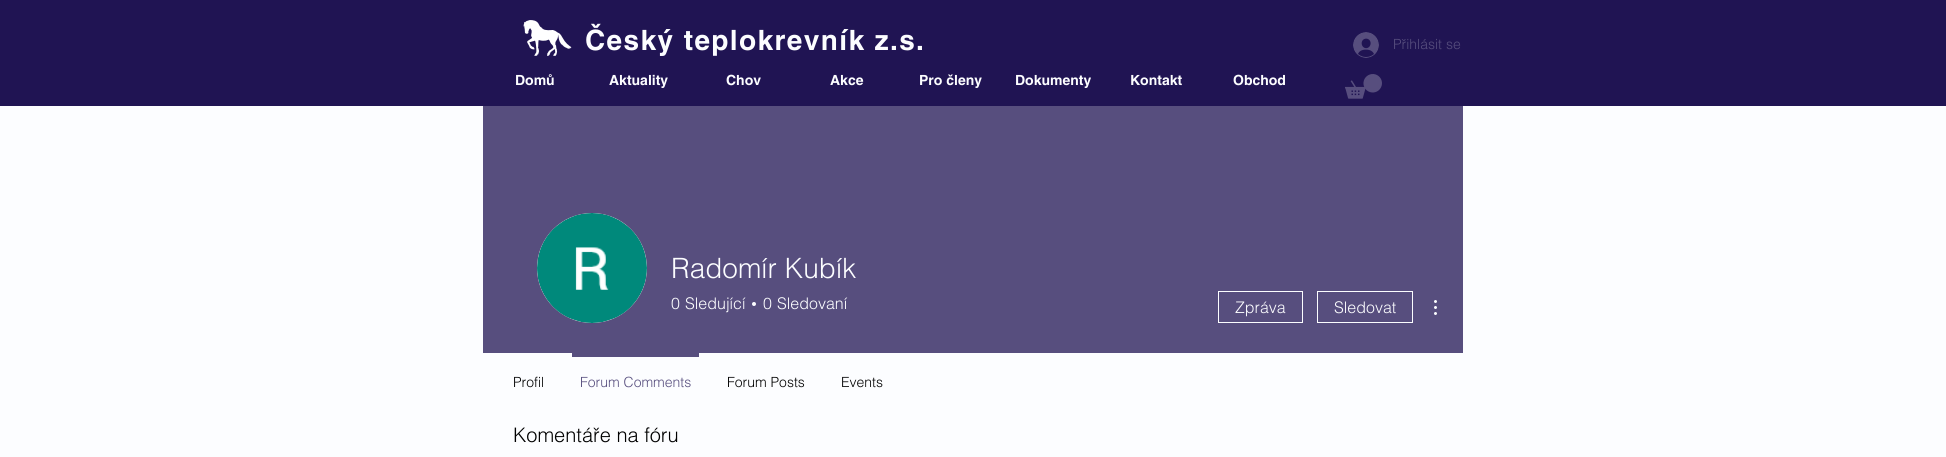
import math
import cairo


def use_color(cr, r, g, b):
  cr.set_source_rgb(r / 255, g / 255, b / 255)

def text(cr, x, y, s, family, size, color, bold=False, italic=False):
  cr.select_font_face(family, cairo.FONT_SLANT_ITALIC if italic else cairo.FONT_SLANT_NORMAL, cairo.FONT_WEIGHT_BOLD if bold else cairo.FONT_WEIGHT_NORMAL)
  cr.set_font_size(size)
  use_color(cr, *color)
  cr.move_to(x, y)
  cr.show_text(s)

def spaced_text(cr, x, y, s, letter, word):
  cr.move_to(x, y)
  for ch in s:
    cr.show_text(ch)
    cr.rel_move_to(letter + word * (ch == ' '), 0)

def box(cr, x, y, w, h, *color):
  use_color(cr, *color)
  cr.rectangle(x, y, w, h)
  cr.fill()

def picture(cr, path, x, y, w, h):
  cr.save()
  cr.set_source_surface(cairo.ImageSurface.create_from_png(path), x, y)
  cr.rectangle(x, y, w, h)
  cr.fill()
  cr.restore()

def draw(cr):
  use_color(cr, 252, 253, 255)
  cr.paint()
  box(cr, 0, 0, 1946, 106, 32, 20, 83)
  picture(cr, "img_01.png", 523, 20, 49, 36)
  picture(cr, "img_02.png", 1353, 32, 26, 26)
  picture(cr, "img_03.png", 1345, 74, 37, 25)
  box(cr, 483, 106, 980, 247, 87, 78, 126)
  use_color(cr, 216, 216, 216)
  cr.arc(592, 268, 55, 0, 2 * math.pi)
  cr.fill()
  picture(cr, "img_04.png", 537, 213, 110, 110)
  use_color(cr, 252, 253, 255)
  cr.arc(754, 304, 2, 0, 2 * math.pi)
  cr.fill()
  cr.rectangle(1218.5, 291.5, 84, 31)
  cr.set_line_width(1)
  cr.stroke()
  cr.rectangle(1317.5, 291.5, 95, 31)
  cr.stroke()
  picture(cr, "img_05.png", 1434, 300, 3, 15)
  box(cr, 572, 353, 127, 4, 87, 78, 126)
  cr.select_font_face("helvetica", cairo.FONT_SLANT_NORMAL, cairo.FONT_WEIGHT_BOLD)
  cr.set_font_size(28)
  use_color(cr, 252, 253, 255)
  spaced_text(cr, 585, 50, "Český teplokrevník z.s.", 1.4, 0)
  text(cr, 1393, 49, "Přihlásit se", "helvetica Light", 14, (87, 78, 126))
  text(cr, 515, 85, "Domů", "helvetica", 14, (252, 253, 255), bold=True)
  text(cr, 609, 85, "Aktuality", "helvetica", 14, (252, 253, 255), bold=True)
  text(cr, 726, 85, "Chov", "helvetica", 14, (252, 253, 255), bold=True)
  text(cr, 830, 85, "Akce", "helvetica", 14, (252, 253, 255), bold=True)
  text(cr, 919, 85, "Pro členy", "helvetica", 14, (252, 253, 255), bold=True)
  text(cr, 1015, 85, "Dokumenty", "helvetica", 14, (252, 253, 255), bold=True)
  text(cr, 1130, 85, "Kontakt", "helvetica", 14, (252, 253, 255), bold=True)
  text(cr, 1233, 85, "Obchod", "helvetica", 14, (252, 253, 255), bold=True)
  text(cr, 671, 278, "Radomír Kubík", "helvetica Light", 28, (252, 253, 255))
  text(cr, 671, 309, "0", "helvetica Light", 16, (252, 253, 255))
  text(cr, 685, 309, "Sledující", "helvetica Light", 16, (252, 253, 255))
  text(cr, 763, 309, "0", "helvetica Light", 16, (252, 253, 255))
  text(cr, 777, 309, "Sledovaní", "helvetica Light", 16, (252, 253, 255))
  text(cr, 1235, 313, "Zpráva", "helvetica Light", 16, (252, 253, 255))
  text(cr, 1334, 313, "Sledovat", "helvetica Light", 16, (252, 253, 255))
  text(cr, 513, 387, "Profil", "helvetica Light", 14, (0, 0, 0))
  text(cr, 580, 387, "Forum Comments", "helvetica Light", 14, (87, 78, 126))
  text(cr, 727, 387, "Forum Posts", "helvetica Light", 14, (0, 0, 0))
  text(cr, 841, 387, "Events", "helvetica Light", 14, (0, 0, 0))
  text(cr, 513, 442, "Komentáře na fóru", "helvetica Light", 20, (0, 0, 0))


surface = cairo.ImageSurface(cairo.FORMAT_RGB24, 1946, 457)
cr = cairo.Context(surface)
options = cairo.FontOptions()
options.set_hint_metrics(cairo.HINT_METRICS_OFF)
options.set_hint_style(cairo.HINT_STYLE_NONE)
cr.set_font_options(options)
cr.set_miter_limit(4)
draw(cr)
surface.write_to_png("out.png")
